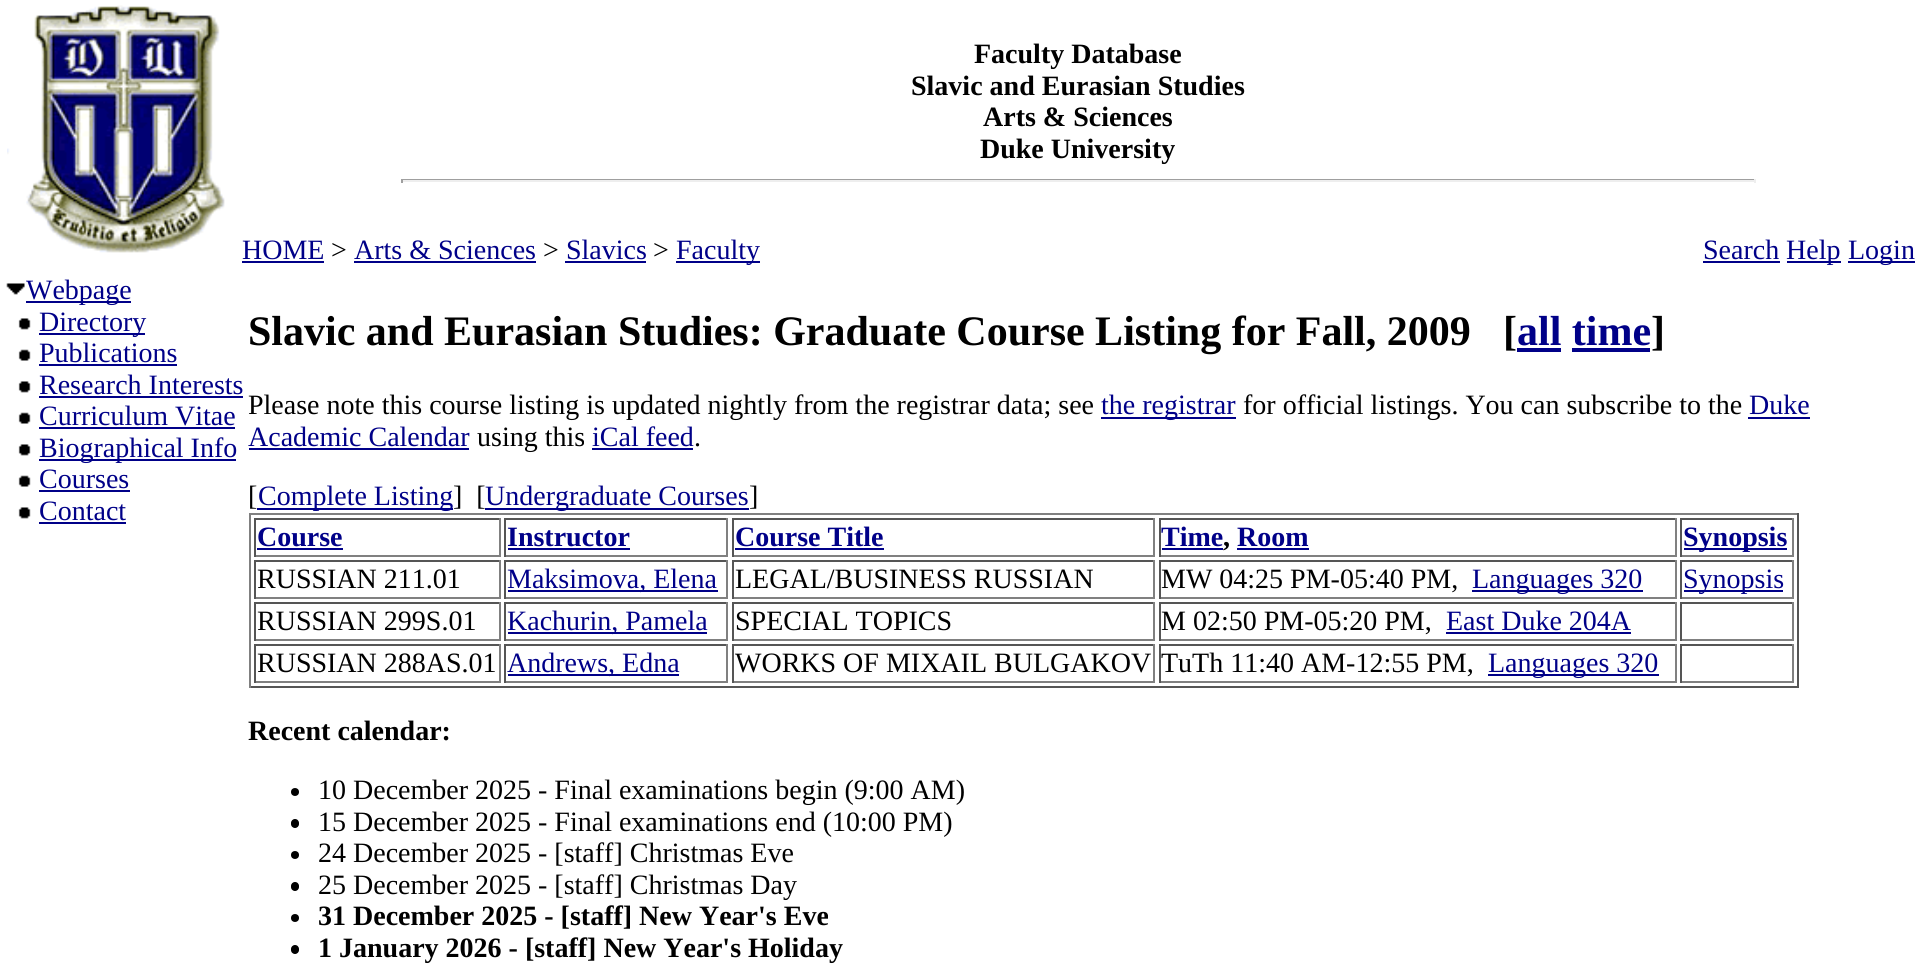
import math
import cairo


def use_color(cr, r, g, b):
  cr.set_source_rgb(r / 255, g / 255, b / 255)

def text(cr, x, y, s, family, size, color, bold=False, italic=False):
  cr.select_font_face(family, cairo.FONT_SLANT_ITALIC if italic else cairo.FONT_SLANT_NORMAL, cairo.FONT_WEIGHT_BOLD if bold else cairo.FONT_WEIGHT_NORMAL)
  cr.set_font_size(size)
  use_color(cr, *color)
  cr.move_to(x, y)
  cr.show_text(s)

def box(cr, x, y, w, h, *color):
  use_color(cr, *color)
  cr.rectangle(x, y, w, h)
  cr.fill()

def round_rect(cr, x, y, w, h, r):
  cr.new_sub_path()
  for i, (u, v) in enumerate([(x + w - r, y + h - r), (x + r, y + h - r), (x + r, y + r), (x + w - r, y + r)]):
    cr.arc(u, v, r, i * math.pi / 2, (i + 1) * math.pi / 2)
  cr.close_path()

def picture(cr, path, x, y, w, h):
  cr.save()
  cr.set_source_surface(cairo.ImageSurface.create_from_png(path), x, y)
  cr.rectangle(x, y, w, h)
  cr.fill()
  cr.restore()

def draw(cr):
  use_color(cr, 255, 255, 255)
  cr.paint()
  picture(cr, "img_01.png", 7, 5, 218, 248)
  box(cr, 401, 179, 1354, 1, 159, 159, 159)
  box(cr, 1754, 179, 2, 4, 238, 238, 238)
  box(cr, 401, 180, 1354, 2, 238, 238, 238)
  box(cr, 401, 179, 2, 4, 159, 159, 159)
  box(cr, 242, 261, 82, 2, 0, 0, 136)
  box(cr, 354, 261, 182, 2, 0, 0, 136)
  box(cr, 565, 261, 81, 2, 0, 0, 136)
  box(cr, 676, 261, 84, 2, 0, 0, 136)
  box(cr, 1703, 261, 77, 2, 0, 0, 136)
  box(cr, 1787, 261, 54, 2, 0, 0, 136)
  box(cr, 1848, 261, 67, 2, 0, 0, 136)
  picture(cr, "img_02.png", 6, 283, 19, 12)
  box(cr, 26, 301, 105, 2, 0, 0, 136)
  picture(cr, "img_03.png", 18, 318, 13, 12)
  box(cr, 39, 333, 106, 2, 0, 0, 136)
  picture(cr, "img_04.png", 18, 349, 13, 12)
  box(cr, 39, 364, 138, 2, 0, 0, 136)
  picture(cr, "img_03.png", 18, 381, 13, 12)
  box(cr, 39, 396, 204, 2, 0, 0, 136)
  picture(cr, "img_04.png", 18, 412, 13, 12)
  box(cr, 39, 427, 196, 2, 0, 0, 136)
  picture(cr, "img_03.png", 18, 444, 13, 12)
  box(cr, 39, 459, 197, 2, 0, 0, 136)
  picture(cr, "img_04.png", 18, 475, 13, 12)
  box(cr, 39, 490, 91, 2, 0, 0, 136)
  picture(cr, "img_03.png", 18, 507, 13, 12)
  box(cr, 39, 522, 87, 2, 0, 0, 136)
  box(cr, 1517, 348, 44, 4, 0, 0, 136)
  box(cr, 1572, 348, 78, 4, 0, 0, 136)
  box(cr, 1101, 417, 135, 2, 0, 0, 136)
  box(cr, 1748, 417, 62, 2, 0, 0, 136)
  box(cr, 249, 448, 220, 2, 0, 0, 136)
  box(cr, 592, 448, 101, 2, 0, 0, 136)
  box(cr, 257, 508, 196, 2, 0, 0, 136)
  box(cr, 485, 508, 264, 2, 0, 0, 136)
  box(cr, 249, 513, 1550, 2, 128, 128, 128)
  box(cr, 1797, 513, 2, 175, 85, 85, 85)
  box(cr, 249, 686, 1550, 2, 85, 85, 85)
  box(cr, 249, 513, 2, 175, 128, 128, 128)
  box(cr, 254, 518, 247, 2, 85, 85, 85)
  box(cr, 499, 518, 2, 39, 128, 128, 128)
  box(cr, 254, 555, 247, 2, 128, 128, 128)
  box(cr, 254, 518, 2, 39, 85, 85, 85)
  box(cr, 257, 548, 86, 2, 0, 0, 136)
  box(cr, 504, 518, 224, 2, 85, 85, 85)
  box(cr, 726, 518, 2, 39, 128, 128, 128)
  box(cr, 504, 555, 224, 2, 128, 128, 128)
  box(cr, 504, 518, 2, 39, 85, 85, 85)
  box(cr, 508, 548, 122, 2, 0, 0, 136)
  box(cr, 732, 518, 423, 2, 85, 85, 85)
  box(cr, 1153, 518, 2, 39, 128, 128, 128)
  box(cr, 732, 555, 423, 2, 128, 128, 128)
  box(cr, 732, 518, 2, 39, 85, 85, 85)
  box(cr, 735, 548, 149, 2, 0, 0, 136)
  box(cr, 1159, 518, 518, 2, 85, 85, 85)
  box(cr, 1675, 518, 2, 39, 128, 128, 128)
  box(cr, 1159, 555, 518, 2, 128, 128, 128)
  box(cr, 1159, 518, 2, 39, 85, 85, 85)
  box(cr, 1162, 548, 61, 2, 0, 0, 136)
  box(cr, 1237, 548, 72, 2, 0, 0, 136)
  box(cr, 1680, 518, 114, 2, 85, 85, 85)
  box(cr, 1792, 518, 2, 39, 128, 128, 128)
  box(cr, 1680, 555, 114, 2, 128, 128, 128)
  box(cr, 1680, 518, 2, 39, 85, 85, 85)
  box(cr, 1684, 548, 103, 2, 0, 0, 136)
  box(cr, 254, 560, 247, 2, 85, 85, 85)
  box(cr, 499, 560, 2, 39, 128, 128, 128)
  box(cr, 254, 597, 247, 2, 128, 128, 128)
  box(cr, 254, 560, 2, 39, 85, 85, 85)
  box(cr, 504, 560, 224, 2, 85, 85, 85)
  box(cr, 726, 560, 2, 39, 128, 128, 128)
  box(cr, 504, 597, 224, 2, 128, 128, 128)
  box(cr, 504, 560, 2, 39, 85, 85, 85)
  box(cr, 508, 590, 210, 2, 0, 0, 136)
  box(cr, 732, 560, 423, 2, 85, 85, 85)
  box(cr, 1153, 560, 2, 39, 128, 128, 128)
  box(cr, 732, 597, 423, 2, 128, 128, 128)
  box(cr, 732, 560, 2, 39, 85, 85, 85)
  box(cr, 1159, 560, 518, 2, 85, 85, 85)
  box(cr, 1675, 560, 2, 39, 128, 128, 128)
  box(cr, 1159, 597, 518, 2, 128, 128, 128)
  box(cr, 1159, 560, 2, 39, 85, 85, 85)
  box(cr, 1472, 590, 171, 2, 0, 0, 136)
  box(cr, 1680, 560, 114, 2, 85, 85, 85)
  box(cr, 1792, 560, 2, 39, 128, 128, 128)
  box(cr, 1680, 597, 114, 2, 128, 128, 128)
  box(cr, 1680, 560, 2, 39, 85, 85, 85)
  box(cr, 1684, 590, 99, 2, 0, 0, 136)
  box(cr, 254, 602, 247, 2, 85, 85, 85)
  box(cr, 499, 602, 2, 39, 128, 128, 128)
  box(cr, 254, 639, 247, 2, 128, 128, 128)
  box(cr, 254, 602, 2, 39, 85, 85, 85)
  box(cr, 504, 602, 224, 2, 85, 85, 85)
  box(cr, 726, 602, 2, 39, 128, 128, 128)
  box(cr, 504, 639, 224, 2, 128, 128, 128)
  box(cr, 504, 602, 2, 39, 85, 85, 85)
  box(cr, 508, 632, 199, 2, 0, 0, 136)
  box(cr, 732, 602, 423, 2, 85, 85, 85)
  box(cr, 1153, 602, 2, 39, 128, 128, 128)
  box(cr, 732, 639, 423, 2, 128, 128, 128)
  box(cr, 732, 602, 2, 39, 85, 85, 85)
  box(cr, 1159, 602, 518, 2, 85, 85, 85)
  box(cr, 1675, 602, 2, 39, 128, 128, 128)
  box(cr, 1159, 639, 518, 2, 128, 128, 128)
  box(cr, 1159, 602, 2, 39, 85, 85, 85)
  box(cr, 1446, 632, 185, 2, 0, 0, 136)
  box(cr, 1680, 602, 114, 2, 85, 85, 85)
  box(cr, 1792, 602, 2, 39, 128, 128, 128)
  box(cr, 1680, 639, 114, 2, 128, 128, 128)
  box(cr, 1680, 602, 2, 39, 85, 85, 85)
  box(cr, 254, 644, 247, 2, 85, 85, 85)
  box(cr, 499, 644, 2, 39, 128, 128, 128)
  box(cr, 254, 681, 247, 2, 128, 128, 128)
  box(cr, 254, 644, 2, 39, 85, 85, 85)
  box(cr, 504, 644, 224, 2, 85, 85, 85)
  box(cr, 726, 644, 2, 39, 128, 128, 128)
  box(cr, 504, 681, 224, 2, 128, 128, 128)
  box(cr, 504, 644, 2, 39, 85, 85, 85)
  box(cr, 508, 674, 171, 2, 0, 0, 136)
  box(cr, 732, 644, 423, 2, 85, 85, 85)
  box(cr, 1153, 644, 2, 39, 128, 128, 128)
  box(cr, 732, 681, 423, 2, 128, 128, 128)
  box(cr, 732, 644, 2, 39, 85, 85, 85)
  box(cr, 1159, 644, 518, 2, 85, 85, 85)
  box(cr, 1675, 644, 2, 39, 128, 128, 128)
  box(cr, 1159, 681, 518, 2, 128, 128, 128)
  box(cr, 1159, 644, 2, 39, 85, 85, 85)
  box(cr, 1488, 674, 171, 2, 0, 0, 136)
  box(cr, 1680, 644, 114, 2, 85, 85, 85)
  box(cr, 1792, 644, 2, 39, 128, 128, 128)
  box(cr, 1680, 681, 114, 2, 128, 128, 128)
  box(cr, 1680, 644, 2, 39, 85, 85, 85)
  use_color(cr, 0, 0, 0)
  cr.arc(295, 792, 4, 0, 2 * math.pi)
  cr.fill()
  round_rect(cr, 291, 819, 8, 9, 4)
  cr.fill()
  cr.arc(295, 855, 4, 0, 2 * math.pi)
  cr.fill()
  round_rect(cr, 291, 882, 8, 9, 4)
  cr.fill()
  cr.arc(295, 918, 4, 0, 2 * math.pi)
  cr.fill()
  round_rect(cr, 291, 945, 8, 9, 4)
  cr.fill()
  text(cr, 974, 63, "Faculty Database", "Liberation Serif", 28, (0, 0, 0), bold=True)
  text(cr, 911, 95, "Slavic and Eurasian Studies", "Liberation Serif", 28, (0, 0, 0), bold=True)
  text(cr, 983, 126, "Arts & Sciences", "Liberation Serif", 28, (0, 0, 0), bold=True)
  text(cr, 980, 158, "Duke University", "Liberation Serif", 28, (0, 0, 0), bold=True)
  text(cr, 242, 259, "HOME", "Liberation Serif", 28, (0, 0, 136))
  text(cr, 331, 259, ">", "Liberation Serif", 28, (0, 0, 0))
  text(cr, 354, 259, "Arts & Sciences", "Liberation Serif", 28, (0, 0, 136))
  text(cr, 543, 259, ">", "Liberation Serif", 28, (0, 0, 0))
  text(cr, 566, 259, "Slavics", "Liberation Serif", 28, (0, 0, 136))
  text(cr, 653, 259, ">", "Liberation Serif", 28, (0, 0, 0))
  text(cr, 676, 259, "Faculty", "Liberation Serif", 28, (0, 0, 136))
  text(cr, 1703, 259, "Search", "Liberation Serif", 28, (0, 0, 136))
  text(cr, 1786, 259, "Help", "Liberation Serif", 28, (0, 0, 136))
  text(cr, 1848, 259, "Login", "Liberation Serif", 28, (0, 0, 136))
  text(cr, 26, 299, "Webpage", "Liberation Serif", 28, (0, 0, 136))
  text(cr, 39, 331, "Directory", "Liberation Serif", 28, (0, 0, 136))
  text(cr, 39, 362, "Publications", "Liberation Serif", 28, (0, 0, 136))
  text(cr, 39, 394, "Research Interests", "Liberation Serif", 28, (0, 0, 136))
  text(cr, 39, 425, "Curriculum Vitae", "Liberation Serif", 28, (0, 0, 136))
  text(cr, 39, 457, "Biographical Info", "Liberation Serif", 28, (0, 0, 136))
  text(cr, 39, 488, "Courses", "Liberation Serif", 28, (0, 0, 136))
  text(cr, 39, 520, "Contact", "Liberation Serif", 28, (0, 0, 136))
  text(cr, 248, 345, "Slavic and Eurasian Studies: Graduate Course Listing for Fall, 2009", "Liberation Serif", 42, (0, 0, 0), bold=True)
  text(cr, 1503, 345, "[", "Liberation Serif", 42, (0, 0, 0), bold=True)
  text(cr, 1517, 345, "all time", "Liberation Serif", 42, (0, 0, 136), bold=True)
  text(cr, 1651, 345, "]", "Liberation Serif", 42, (0, 0, 0), bold=True)
  text(cr, 248, 414, "Please note this course listing is updated nightly from the registrar data; see", "Liberation Serif", 28, (0, 0, 0))
  text(cr, 1101, 414, "the registrar", "Liberation Serif", 28, (0, 0, 136))
  text(cr, 1243, 414, "for official listings. You can subscribe to the", "Liberation Serif", 28, (0, 0, 0))
  text(cr, 1749, 414, "Duke", "Liberation Serif", 28, (0, 0, 136))
  text(cr, 248, 446, "Academic Calendar", "Liberation Serif", 28, (0, 0, 136))
  text(cr, 477, 446, "using this", "Liberation Serif", 28, (0, 0, 0))
  text(cr, 592, 446, "iCal feed", "Liberation Serif", 28, (0, 0, 136))
  text(cr, 694, 446, ".", "Liberation Serif", 28, (0, 0, 0))
  text(cr, 248, 505, "[", "Liberation Serif", 28, (0, 0, 0))
  text(cr, 258, 505, "Complete Listing", "Liberation Serif", 28, (0, 0, 136))
  text(cr, 453, 505, "]  [", "Liberation Serif", 28, (0, 0, 0))
  text(cr, 485, 505, "Undergraduate Courses", "Liberation Serif", 28, (0, 0, 136))
  text(cr, 749, 505, "]", "Liberation Serif", 28, (0, 0, 0))
  text(cr, 257, 546, "Course", "Liberation Serif", 28, (0, 0, 136), bold=True)
  text(cr, 507, 546, "Instructor", "Liberation Serif", 28, (0, 0, 136), bold=True)
  text(cr, 735, 546, "Course Title", "Liberation Serif", 28, (0, 0, 136), bold=True)
  text(cr, 1161, 546, "Time", "Liberation Serif", 28, (0, 0, 136), bold=True)
  text(cr, 1223, 546, ",", "Liberation Serif", 28, (0, 0, 0), bold=True)
  text(cr, 1237, 546, "Room", "Liberation Serif", 28, (0, 0, 136), bold=True)
  text(cr, 1683, 546, "Synopsis", "Liberation Serif", 28, (0, 0, 136), bold=True)
  text(cr, 257, 588, "RUSSIAN 211.01", "Liberation Serif", 28, (0, 0, 0))
  text(cr, 507, 588, "Maksimova, Elena", "Liberation Serif", 28, (0, 0, 136))
  text(cr, 735, 588, "LEGAL/BUSINESS RUSSIAN", "Liberation Serif", 28, (0, 0, 0))
  text(cr, 1161, 588, "MW 04:25 PM-05:40 PM,", "Liberation Serif", 28, (0, 0, 0))
  text(cr, 1472, 588, "Languages 320", "Liberation Serif", 28, (0, 0, 136))
  text(cr, 1683, 588, "Synopsis", "Liberation Serif", 28, (0, 0, 136))
  text(cr, 257, 630, "RUSSIAN 299S.01", "Liberation Serif", 28, (0, 0, 0))
  text(cr, 507, 630, "Kachurin, Pamela", "Liberation Serif", 28, (0, 0, 136))
  text(cr, 735, 630, "SPECIAL TOPICS", "Liberation Serif", 28, (0, 0, 0))
  text(cr, 1161, 630, "M 02:50 PM-05:20 PM,", "Liberation Serif", 28, (0, 0, 0))
  text(cr, 1446, 630, "East Duke 204A", "Liberation Serif", 28, (0, 0, 136))
  text(cr, 257, 672, "RUSSIAN 288AS.01", "Liberation Serif", 28, (0, 0, 0))
  text(cr, 507, 672, "Andrews, Edna", "Liberation Serif", 28, (0, 0, 136))
  text(cr, 735, 672, "WORKS OF MIXAIL BULGAKOV", "Liberation Serif", 28, (0, 0, 0))
  text(cr, 1161, 672, "TuTh 11:40 AM-12:55 PM,", "Liberation Serif", 28, (0, 0, 0))
  text(cr, 1488, 672, "Languages 320", "Liberation Serif", 28, (0, 0, 136))
  text(cr, 248, 740, "Recent calendar:", "Liberation Serif", 28, (0, 0, 0), bold=True)
  text(cr, 318, 799, "10 December 2025 - Final examinations begin (9:00 AM)", "Liberation Serif", 28, (0, 0, 0))
  text(cr, 318, 831, "15 December 2025 - Final examinations end (10:00 PM)", "Liberation Serif", 28, (0, 0, 0))
  text(cr, 318, 862, "24 December 2025 - [staff] Christmas Eve", "Liberation Serif", 28, (0, 0, 0))
  text(cr, 318, 894, "25 December 2025 - [staff] Christmas Day", "Liberation Serif", 28, (0, 0, 0))
  text(cr, 318, 925, "31 December 2025 - [staff] New Year's Eve", "Liberation Serif", 28, (0, 0, 0), bold=True)
  text(cr, 318, 957, "1 January 2026 - [staff] New Year's Holiday", "Liberation Serif", 28, (0, 0, 0), bold=True)


surface = cairo.ImageSurface(cairo.FORMAT_RGB24, 1920, 965)
cr = cairo.Context(surface)
options = cairo.FontOptions()
options.set_hint_metrics(cairo.HINT_METRICS_OFF)
options.set_hint_style(cairo.HINT_STYLE_NONE)
cr.set_font_options(options)
cr.set_miter_limit(4)
draw(cr)
surface.write_to_png("out.png")
